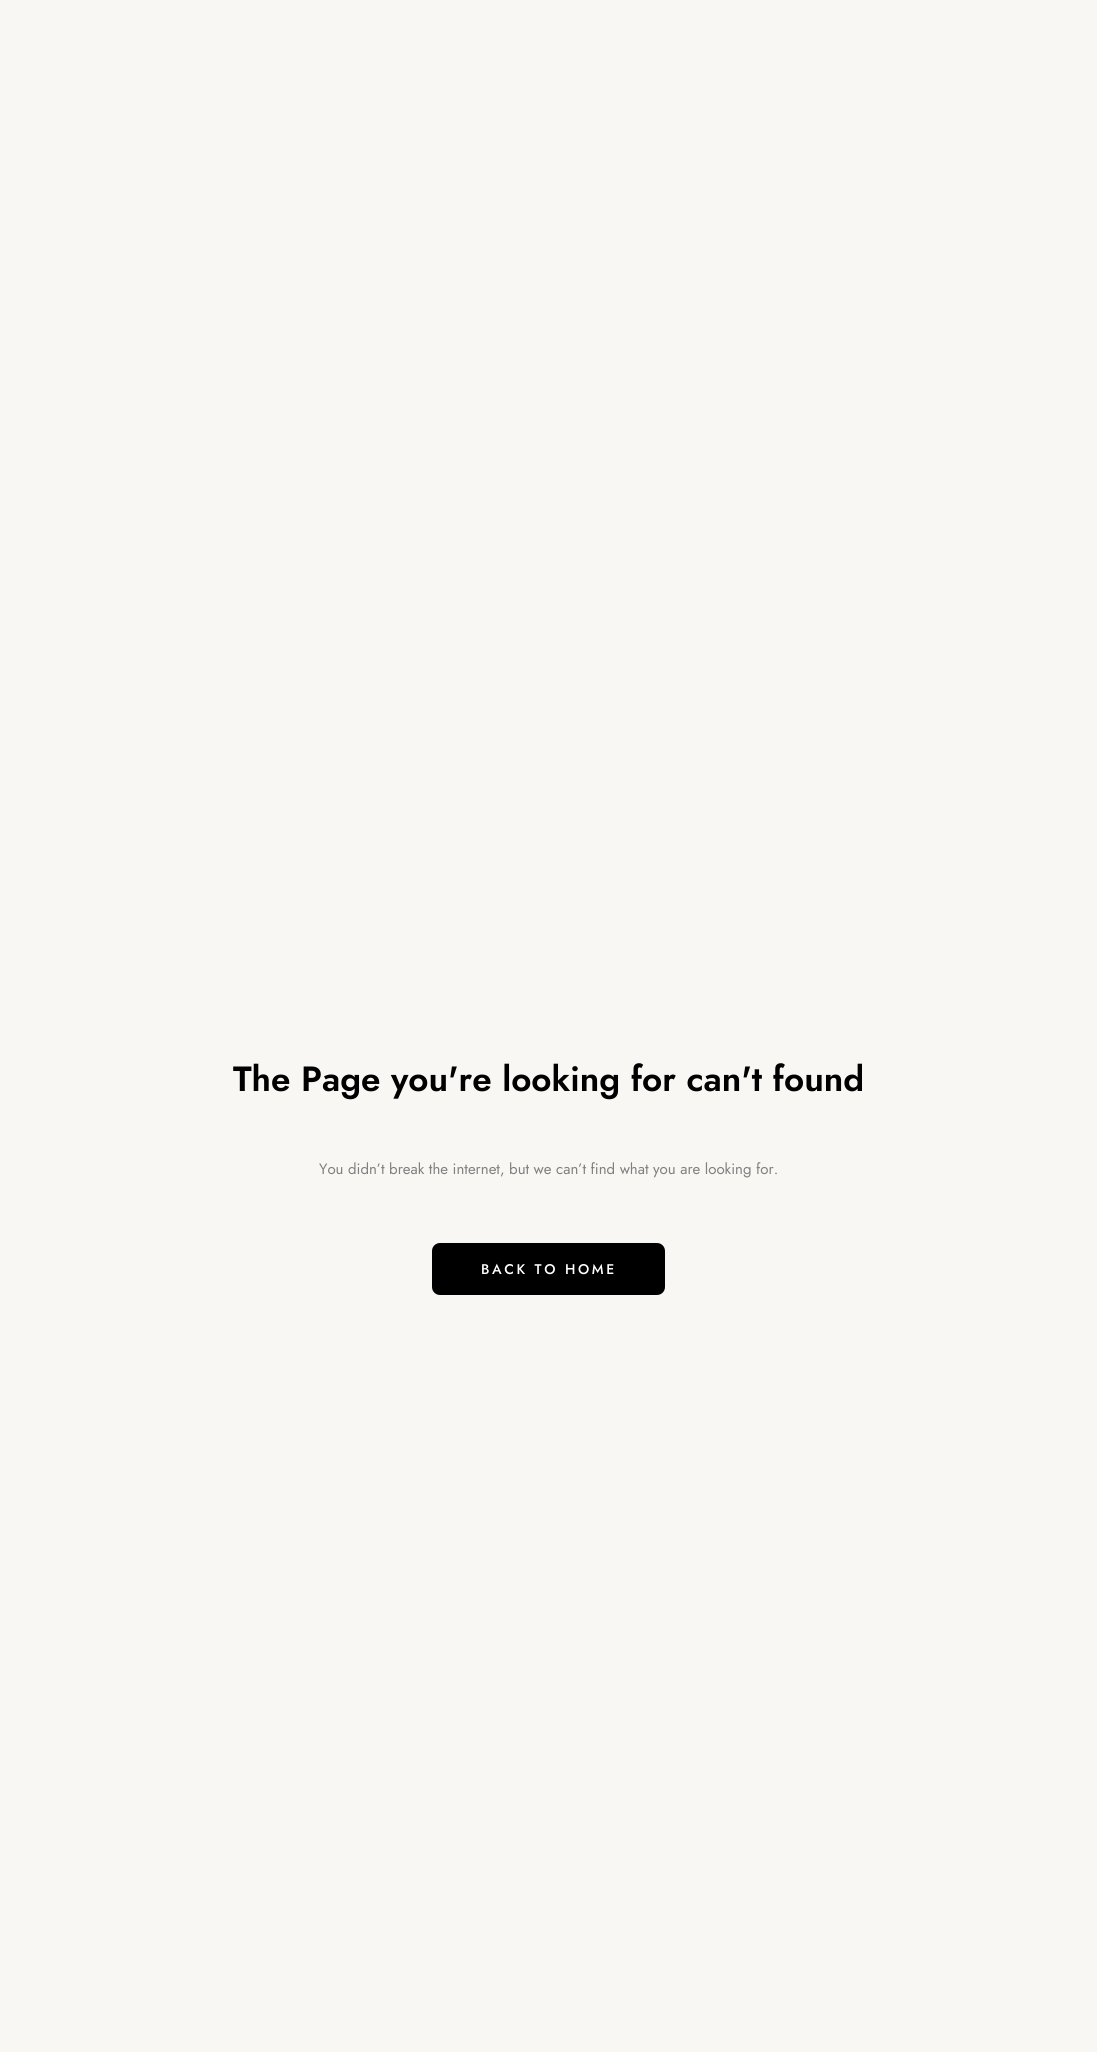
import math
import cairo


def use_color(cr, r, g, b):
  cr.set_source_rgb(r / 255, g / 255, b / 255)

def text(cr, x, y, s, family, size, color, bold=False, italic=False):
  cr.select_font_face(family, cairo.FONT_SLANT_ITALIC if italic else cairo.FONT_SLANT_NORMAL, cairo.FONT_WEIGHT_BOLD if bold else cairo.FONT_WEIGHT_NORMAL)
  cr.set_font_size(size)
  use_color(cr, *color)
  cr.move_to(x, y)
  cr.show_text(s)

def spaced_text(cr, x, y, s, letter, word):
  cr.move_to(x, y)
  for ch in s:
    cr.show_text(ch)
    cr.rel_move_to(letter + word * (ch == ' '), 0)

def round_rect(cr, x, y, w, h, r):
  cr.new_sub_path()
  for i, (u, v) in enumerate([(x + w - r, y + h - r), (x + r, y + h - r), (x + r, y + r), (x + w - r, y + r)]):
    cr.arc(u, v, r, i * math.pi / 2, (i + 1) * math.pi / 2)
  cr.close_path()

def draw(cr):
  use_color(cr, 249, 247, 244)
  cr.paint()
  use_color(cr, 0, 0, 0)
  round_rect(cr, 433, 1244, 231, 50, 7)
  cr.fill_preserve()
  cr.stroke()
  text(cr, 233, 1091, "The Page you're looking for can't found", "Jost SemiBold", 35, (0, 0, 0))
  text(cr, 319, 1174, "You didn’t break the internet, but we can’t find what you are looking for.", "Jost", 15, (128, 128, 128))
  cr.select_font_face("Jost Medium")
  cr.set_font_size(14)
  use_color(cr, 255, 255, 255)
  spaced_text(cr, 481, 1274, "BACK TO HOME", 2.6, 0)


surface = cairo.ImageSurface(cairo.FORMAT_RGB24, 1097, 2052)
cr = cairo.Context(surface)
options = cairo.FontOptions()
options.set_hint_metrics(cairo.HINT_METRICS_OFF)
options.set_hint_style(cairo.HINT_STYLE_NONE)
cr.set_font_options(options)
cr.set_miter_limit(4)
draw(cr)
surface.write_to_png("out.png")
